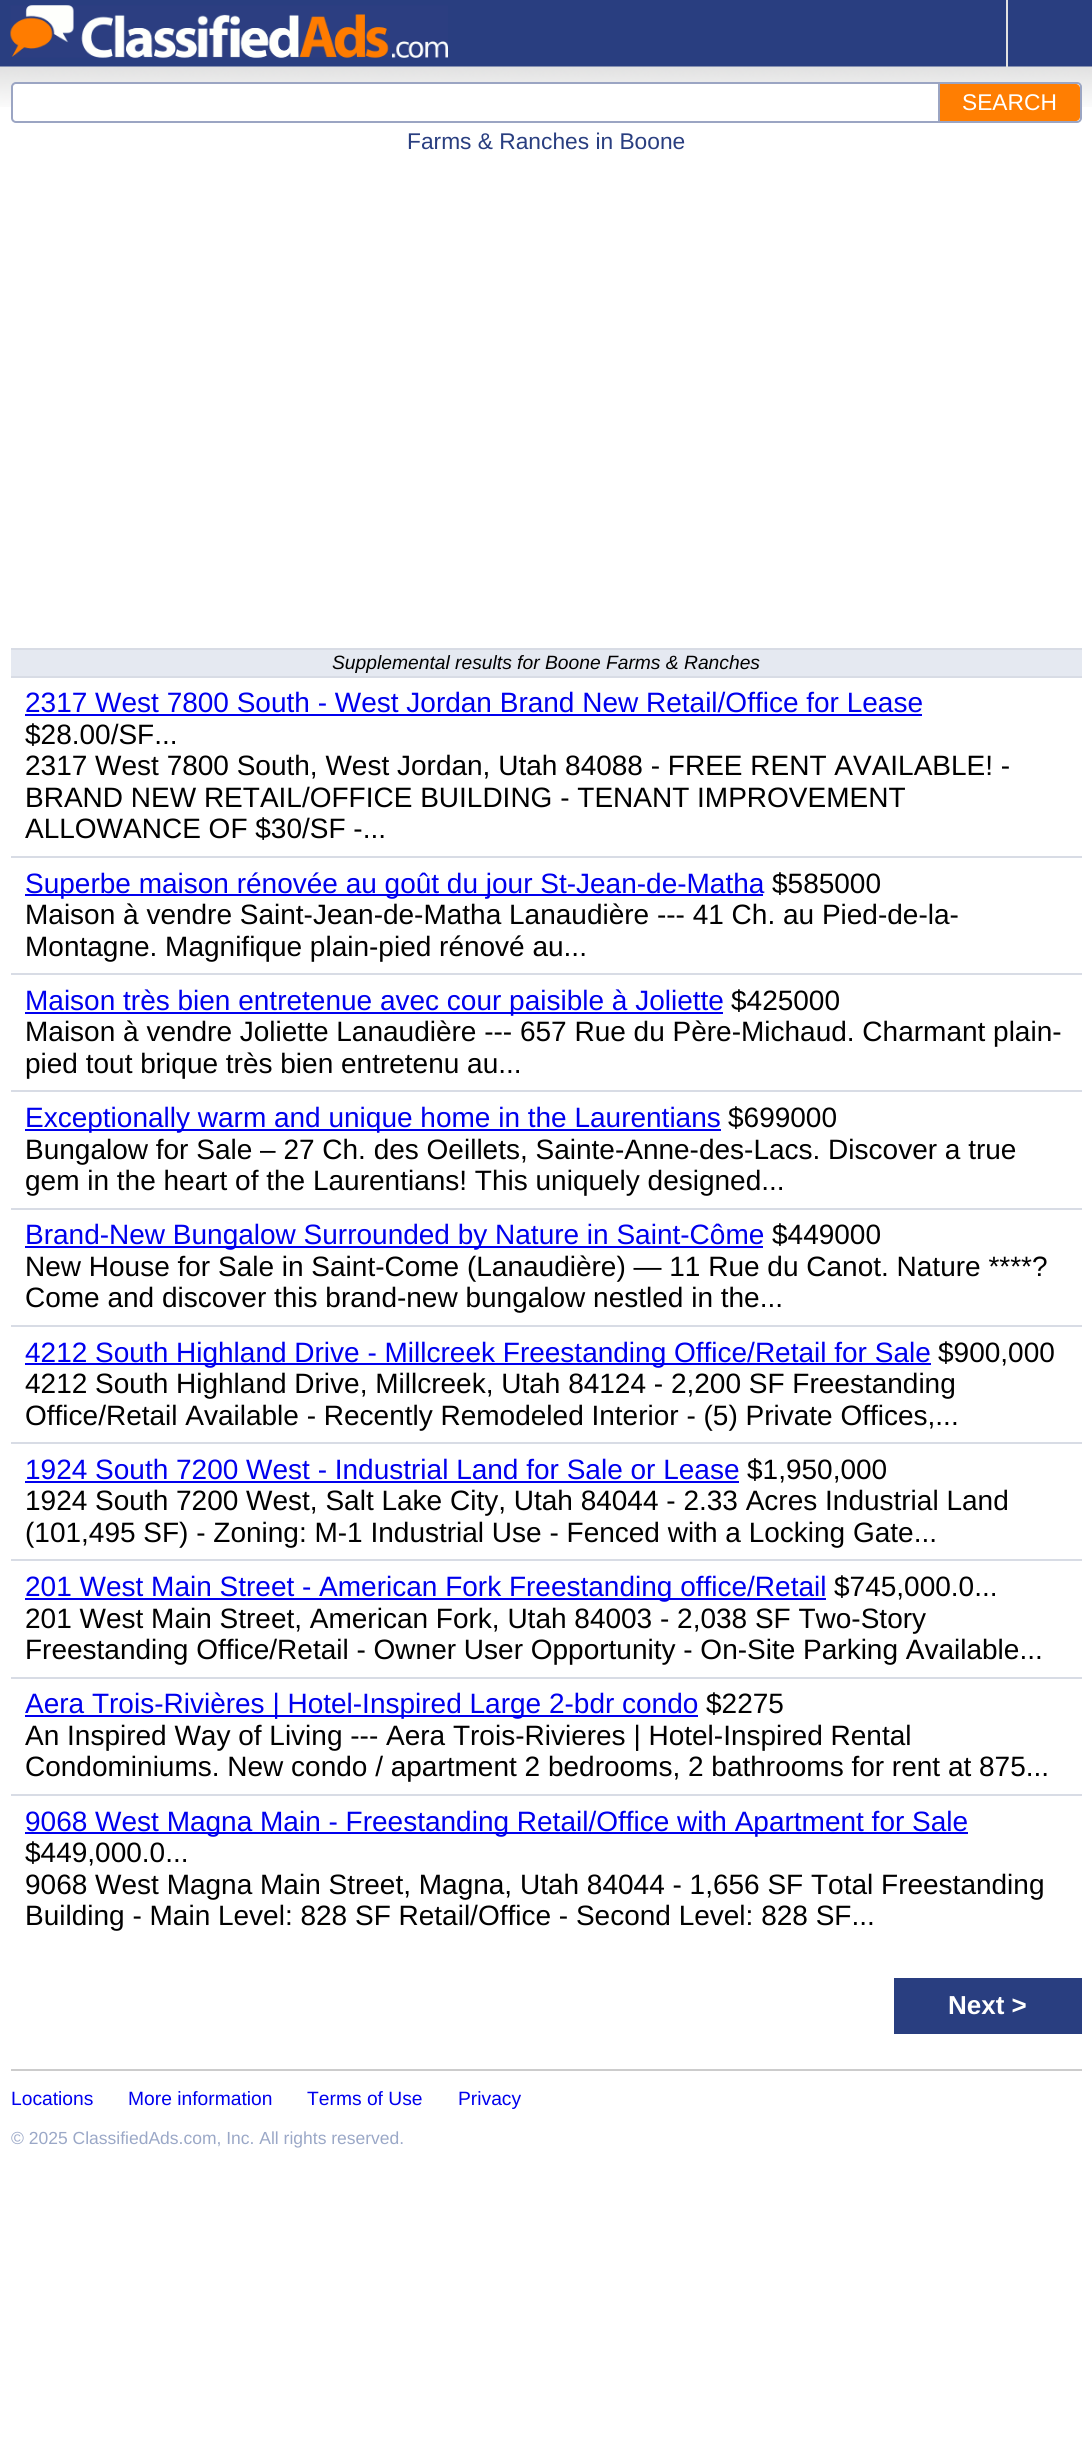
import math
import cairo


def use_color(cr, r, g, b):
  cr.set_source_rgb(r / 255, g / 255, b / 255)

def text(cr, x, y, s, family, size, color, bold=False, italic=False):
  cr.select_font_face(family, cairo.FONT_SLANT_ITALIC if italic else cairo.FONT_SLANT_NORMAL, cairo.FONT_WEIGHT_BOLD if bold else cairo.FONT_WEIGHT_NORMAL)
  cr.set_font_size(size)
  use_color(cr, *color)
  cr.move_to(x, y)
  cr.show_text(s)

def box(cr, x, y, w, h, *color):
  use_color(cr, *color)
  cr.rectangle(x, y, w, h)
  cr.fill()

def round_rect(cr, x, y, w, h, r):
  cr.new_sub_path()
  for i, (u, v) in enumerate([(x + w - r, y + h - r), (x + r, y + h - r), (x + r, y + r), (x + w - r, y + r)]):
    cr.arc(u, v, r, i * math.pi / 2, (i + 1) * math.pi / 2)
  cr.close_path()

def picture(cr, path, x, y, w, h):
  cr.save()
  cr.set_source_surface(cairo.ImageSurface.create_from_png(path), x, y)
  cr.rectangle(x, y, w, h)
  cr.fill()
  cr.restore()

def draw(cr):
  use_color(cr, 255, 255, 255)
  cr.paint()
  box(cr, 0, 0, 1092, 67, 41, 62, 128)
  picture(cr, "img_01.png", 10, 5, 438, 53)
  picture(cr, "img_02.png", 0, 66, 1092, 41)
  box(cr, 1006, 0, 2, 67, 226, 226, 226)
  use_color(cr, 255, 255, 255)
  round_rect(cr, 12, 83, 1069, 39, 4)
  cr.fill_preserve()
  use_color(cr, 155, 165, 195)
  cr.stroke()
  use_color(cr, 255, 126, 2)
  cr.new_path()
  cr.move_to(938, 84)
  cr.line_to(1076, 84)
  cr.curve_to(1078, 84, 1080, 86, 1080, 88)
  cr.line_to(1080, 117)
  cr.curve_to(1080, 119, 1078, 121, 1076, 121)
  cr.line_to(938, 121)
  cr.close_path()
  cr.fill()
  box(cr, 938, 84, 2, 37, 155, 165, 195)
  box(cr, 11, 650, 1071, 26, 229, 233, 241)
  box(cr, 11, 648, 1071, 2, 216, 220, 229)
  box(cr, 11, 676, 1071, 2, 216, 220, 229)
  box(cr, 25, 714, 897, 2, 0, 0, 238)
  box(cr, 11, 856, 1071, 2, 216, 220, 229)
  box(cr, 25, 894, 738, 2, 0, 0, 238)
  box(cr, 11, 973, 1071, 2, 216, 220, 229)
  box(cr, 25, 1012, 698, 2, 0, 0, 238)
  box(cr, 11, 1090, 1071, 2, 216, 220, 229)
  box(cr, 25, 1129, 696, 2, 0, 0, 238)
  box(cr, 11, 1208, 1071, 2, 216, 220, 229)
  box(cr, 25, 1246, 738, 2, 0, 0, 238)
  box(cr, 11, 1325, 1071, 2, 216, 220, 229)
  box(cr, 25, 1363, 906, 2, 0, 0, 238)
  box(cr, 11, 1442, 1071, 2, 216, 220, 229)
  box(cr, 25, 1481, 714, 2, 0, 0, 238)
  box(cr, 11, 1559, 1071, 2, 216, 220, 229)
  box(cr, 25, 1598, 801, 2, 0, 0, 238)
  box(cr, 11, 1677, 1071, 2, 216, 220, 229)
  box(cr, 25, 1715, 673, 2, 0, 0, 238)
  box(cr, 11, 1794, 1071, 2, 216, 220, 229)
  box(cr, 25, 1832, 943, 2, 0, 0, 238)
  box(cr, 894, 1978, 188, 56, 41, 62, 128)
  box(cr, 11, 2069, 1071, 2, 204, 204, 204)
  text(cr, 962, 110, "SEARCH", "Liberation Sans", 22.75, (255, 255, 255))
  text(cr, 407, 149, "Farms & Ranches in Boone", "Liberation Sans", 22.75, (41, 62, 128))
  text(cr, 332, 669, "Supplemental results for Boone Farms & Ranches", "Liberation Sans", 19.25, (0, 0, 0), italic=True)
  text(cr, 25, 712, "2317 West 7800 South - West Jordan Brand New Retail/Office for Lease", "Liberation Sans", 28, (0, 0, 238))
  text(cr, 25, 744, "$28.00/SF...", "Liberation Sans", 28, (0, 0, 0))
  text(cr, 25, 775, "2317 West 7800 South, West Jordan, Utah 84088 - FREE RENT AVAILABLE! -", "Liberation Sans", 28, (0, 0, 0))
  text(cr, 25, 807, "BRAND NEW RETAIL/OFFICE BUILDING - TENANT IMPROVEMENT", "Liberation Sans", 28, (0, 0, 0))
  text(cr, 25, 838, "ALLOWANCE OF $30/SF -...", "Liberation Sans", 28, (0, 0, 0))
  text(cr, 25, 893, "Superbe maison rénovée au goût du jour St-Jean-de-Matha", "Liberation Sans", 28, (0, 0, 238))
  text(cr, 772, 893, "$585000", "Liberation Sans", 28, (0, 0, 0))
  text(cr, 25, 924, "Maison à vendre Saint-Jean-de-Matha Lanaudière --- 41 Ch. au Pied-de-la-", "Liberation Sans", 28, (0, 0, 0))
  text(cr, 25, 956, "Montagne. Magnifique plain-pied rénové au...", "Liberation Sans", 28, (0, 0, 0))
  text(cr, 25, 1010, "Maison très bien entretenue avec cour paisible à Joliette", "Liberation Sans", 28, (0, 0, 238))
  text(cr, 731, 1010, "$425000", "Liberation Sans", 28, (0, 0, 0))
  text(cr, 25, 1041, "Maison à vendre Joliette Lanaudière --- 657 Rue du Père-Michaud. Charmant plain-", "Liberation Sans", 28, (0, 0, 0))
  text(cr, 25, 1073, "pied tout brique très bien entretenu au...", "Liberation Sans", 28, (0, 0, 0))
  text(cr, 25, 1127, "Exceptionally warm and unique home in the Laurentians", "Liberation Sans", 28, (0, 0, 238))
  text(cr, 728, 1127, "$699000", "Liberation Sans", 28, (0, 0, 0))
  text(cr, 25, 1159, "Bungalow for Sale – 27 Ch. des Oeillets, Sainte-Anne-des-Lacs. Discover a true", "Liberation Sans", 28, (0, 0, 0))
  text(cr, 25, 1190, "gem in the heart of the Laurentians! This uniquely designed...", "Liberation Sans", 28, (0, 0, 0))
  text(cr, 25, 1244, "Brand-New Bungalow Surrounded by Nature in Saint-Côme", "Liberation Sans", 28, (0, 0, 238))
  text(cr, 772, 1244, "$449000", "Liberation Sans", 28, (0, 0, 0))
  text(cr, 25, 1276, "New House for Sale in Saint-Come (Lanaudière) — 11 Rue du Canot. Nature ****?", "Liberation Sans", 28, (0, 0, 0))
  text(cr, 25, 1307, "Come and discover this brand-new bungalow nestled in the...", "Liberation Sans", 28, (0, 0, 0))
  text(cr, 25, 1362, "4212 South Highland Drive - Millcreek Freestanding Office/Retail for Sale", "Liberation Sans", 28, (0, 0, 238))
  text(cr, 938, 1362, "$900,000", "Liberation Sans", 28, (0, 0, 0))
  text(cr, 25, 1393, "4212 South Highland Drive, Millcreek, Utah 84124 - 2,200 SF Freestanding", "Liberation Sans", 28, (0, 0, 0))
  text(cr, 25, 1425, "Office/Retail Available - Recently Remodeled Interior - (5) Private Offices,...", "Liberation Sans", 28, (0, 0, 0))
  text(cr, 25, 1479, "1924 South 7200 West - Industrial Land for Sale or Lease", "Liberation Sans", 28, (0, 0, 238))
  text(cr, 747, 1479, "$1,950,000", "Liberation Sans", 28, (0, 0, 0))
  text(cr, 25, 1510, "1924 South 7200 West, Salt Lake City, Utah 84044 - 2.33 Acres Industrial Land", "Liberation Sans", 28, (0, 0, 0))
  text(cr, 25, 1542, "(101,495 SF) - Zoning: M-1 Industrial Use - Fenced with a Locking Gate...", "Liberation Sans", 28, (0, 0, 0))
  text(cr, 25, 1596, "201 West Main Street - American Fork Freestanding office/Retail", "Liberation Sans", 28, (0, 0, 238))
  text(cr, 834, 1596, "$745,000.0...", "Liberation Sans", 28, (0, 0, 0))
  text(cr, 25, 1628, "201 West Main Street, American Fork, Utah 84003 - 2,038 SF Two-Story", "Liberation Sans", 28, (0, 0, 0))
  text(cr, 25, 1659, "Freestanding Office/Retail - Owner User Opportunity - On-Site Parking Available...", "Liberation Sans", 28, (0, 0, 0))
  text(cr, 25, 1713, "Aera Trois-Rivières | Hotel-Inspired Large 2-bdr condo", "Liberation Sans", 28, (0, 0, 238))
  text(cr, 706, 1713, "$2275", "Liberation Sans", 28, (0, 0, 0))
  text(cr, 25, 1745, "An Inspired Way of Living --- Aera Trois-Rivieres | Hotel-Inspired Rental", "Liberation Sans", 28, (0, 0, 0))
  text(cr, 25, 1776, "Condominiums. New condo / apartment 2 bedrooms, 2 bathrooms for rent at 875...", "Liberation Sans", 28, (0, 0, 0))
  text(cr, 25, 1831, "9068 West Magna Main - Freestanding Retail/Office with Apartment for Sale", "Liberation Sans", 28, (0, 0, 238))
  text(cr, 25, 1862, "$449,000.0...", "Liberation Sans", 28, (0, 0, 0))
  text(cr, 25, 1894, "9068 West Magna Main Street, Magna, Utah 84044 - 1,656 SF Total Freestanding", "Liberation Sans", 28, (0, 0, 0))
  text(cr, 25, 1925, "Building - Main Level: 828 SF Retail/Office - Second Level: 828 SF...", "Liberation Sans", 28, (0, 0, 0))
  text(cr, 948, 2014, "Next >", "Liberation Sans", 26, (255, 255, 255), bold=True)
  text(cr, 11, 2105, "Locations", "Liberation Sans", 19.25, (0, 0, 238))
  text(cr, 128, 2105, "More information", "Liberation Sans", 19.25, (0, 0, 238))
  text(cr, 307, 2105, "Terms of Use", "Liberation Sans", 19.25, (0, 0, 238))
  text(cr, 458, 2105, "Privacy", "Liberation Sans", 19.25, (0, 0, 238))
  text(cr, 11, 2144, "© 2025 ClassifiedAds.com, Inc. All rights reserved.", "Liberation Sans", 17.5, (155, 168, 199))


surface = cairo.ImageSurface(cairo.FORMAT_RGB24, 1092, 2455)
cr = cairo.Context(surface)
options = cairo.FontOptions()
options.set_hint_metrics(cairo.HINT_METRICS_OFF)
options.set_hint_style(cairo.HINT_STYLE_NONE)
cr.set_font_options(options)
cr.set_miter_limit(4)
draw(cr)
surface.write_to_png("out.png")
